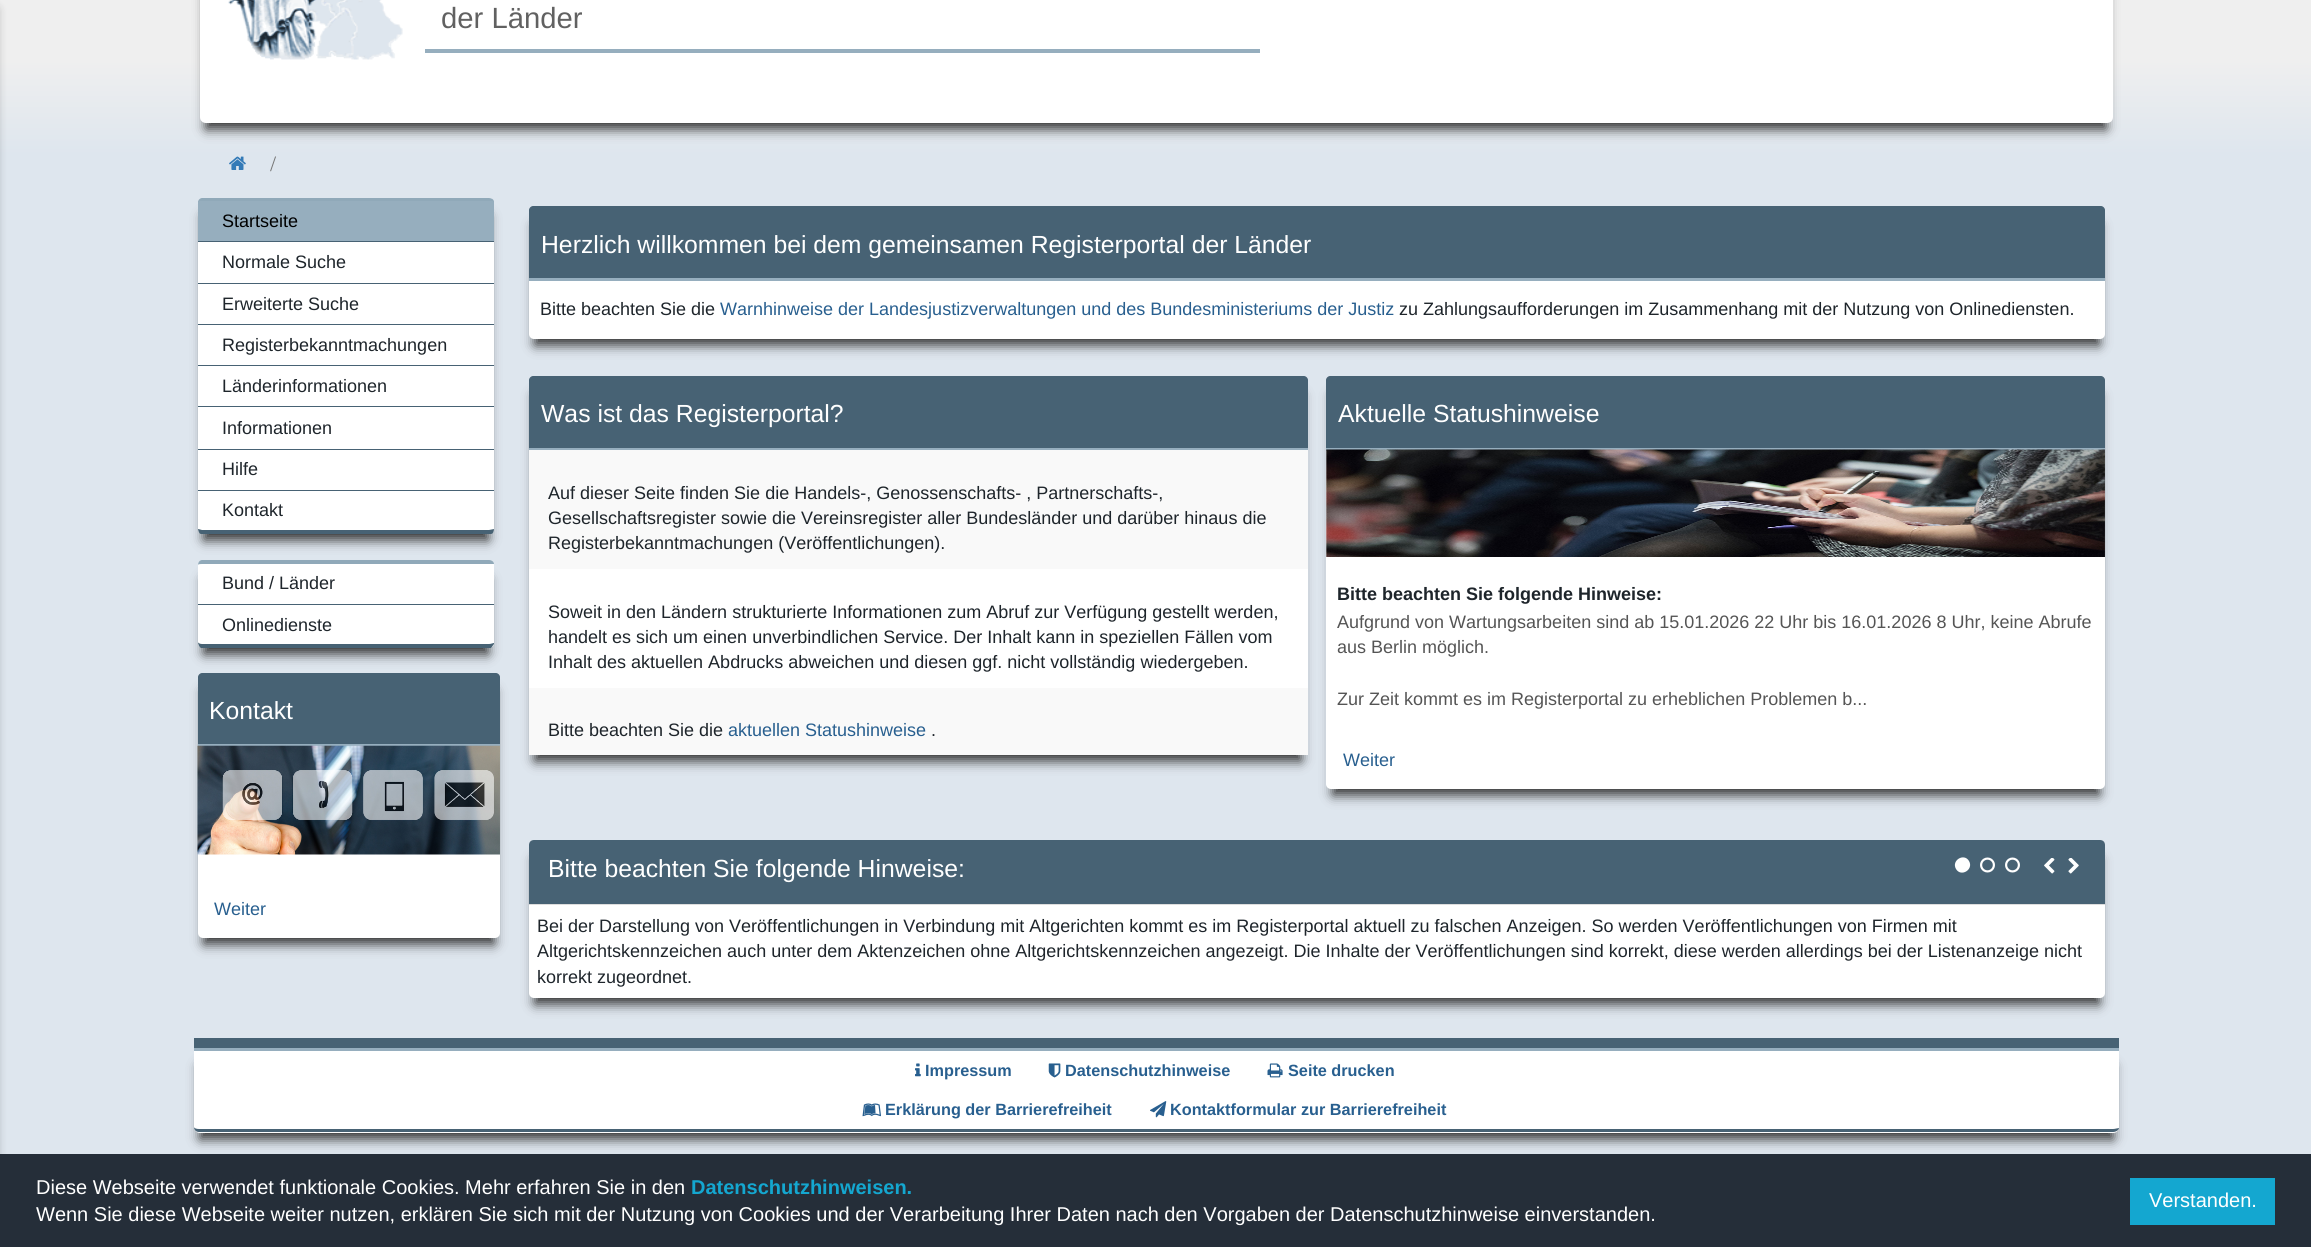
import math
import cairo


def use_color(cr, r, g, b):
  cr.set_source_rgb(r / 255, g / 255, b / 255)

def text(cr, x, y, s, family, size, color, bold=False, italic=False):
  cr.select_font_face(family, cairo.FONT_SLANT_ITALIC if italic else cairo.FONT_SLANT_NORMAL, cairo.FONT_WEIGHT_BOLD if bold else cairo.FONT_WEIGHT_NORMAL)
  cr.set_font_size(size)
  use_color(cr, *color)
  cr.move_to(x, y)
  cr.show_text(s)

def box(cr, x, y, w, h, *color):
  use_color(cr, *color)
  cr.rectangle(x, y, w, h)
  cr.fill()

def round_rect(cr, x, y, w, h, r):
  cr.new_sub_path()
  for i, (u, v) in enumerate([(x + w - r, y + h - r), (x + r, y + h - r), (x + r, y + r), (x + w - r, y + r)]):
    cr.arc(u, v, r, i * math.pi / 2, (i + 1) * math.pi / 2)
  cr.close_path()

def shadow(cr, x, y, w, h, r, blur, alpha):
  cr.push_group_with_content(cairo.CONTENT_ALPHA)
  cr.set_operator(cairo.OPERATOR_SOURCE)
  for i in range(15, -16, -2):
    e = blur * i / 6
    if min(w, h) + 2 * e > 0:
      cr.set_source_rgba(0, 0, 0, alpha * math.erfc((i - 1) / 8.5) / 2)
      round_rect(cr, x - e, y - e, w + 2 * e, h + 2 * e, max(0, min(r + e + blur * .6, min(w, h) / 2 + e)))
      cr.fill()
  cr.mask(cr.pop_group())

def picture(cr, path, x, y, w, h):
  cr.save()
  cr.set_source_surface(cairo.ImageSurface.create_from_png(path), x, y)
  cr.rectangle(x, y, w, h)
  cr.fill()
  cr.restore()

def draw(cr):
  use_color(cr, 255, 255, 255)
  cr.paint()
  gradient = cairo.LinearGradient(1156, -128, 1156, 1216)
  gradient.add_color_stop_rgba(0.14, 0.937, 0.937, 0.937, 1)
  gradient.add_color_stop_rgba(0.21, 0.871, 0.902, 0.933, 1)
  cr.set_source(gradient)
  cr.rectangle(0, 0, 2311, 1154)
  cr.fill()
  use_color(cr, 50, 50, 50)
  shadow(cr, 206, -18, 1900, 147, 0, 6, 1)
  use_color(cr, 255, 255, 255)
  cr.new_path()
  cr.move_to(200, -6)
  cr.line_to(2113, -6)
  cr.line_to(2113, 117)
  cr.curve_to(2113, 120.5, 2110.5, 123, 2107, 123)
  cr.line_to(206, 123)
  cr.curve_to(202.5, 123, 200, 120.5, 200, 117)
  cr.close_path()
  cr.fill()
  use_color(cr, 0, 0, 0)
  shadow(cr, -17, 5, 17, 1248, 5, 4, 0.15)
  picture(cr, "img_01.png", 228, 0, 175, 60)
  box(cr, 425, 49, 835, 4, 150, 174, 190)
  picture(cr, "img_02.png", 229, 156, 17, 14)
  use_color(cr, 50, 50, 50)
  shadow(cr, 204, 216, 284, 324, 0, 6, 1)
  use_color(cr, 255, 255, 255)
  round_rect(cr, 198, 198, 296, 336, 5)
  cr.fill()
  use_color(cr, 144, 169, 185)
  cr.new_path()
  cr.move_to(202, 198)
  cr.line_to(489, 198)
  cr.curve_to(491, 198, 494, 199, 494, 202)
  cr.line_to(489, 201)
  cr.line_to(202, 201)
  cr.line_to(198, 202)
  cr.curve_to(198, 200, 200, 198, 202, 198)
  cr.close_path()
  cr.fill()
  use_color(cr, 71, 98, 116)
  cr.new_path()
  cr.move_to(494, 529)
  cr.curve_to(494, 531, 493, 534, 491, 534)
  cr.line_to(201, 534)
  cr.curve_to(199, 534, 198, 530, 198, 529)
  cr.line_to(202, 530)
  cr.line_to(489, 530)
  cr.close_path()
  cr.fill()
  box(cr, 198, 241, 296, 1, 71, 98, 116)
  box(cr, 198, 201, 296, 40, 150, 174, 190)
  box(cr, 198, 283, 296, 1, 71, 98, 116)
  box(cr, 198, 324, 296, 1, 71, 98, 116)
  box(cr, 198, 365, 296, 1, 71, 98, 116)
  box(cr, 198, 406, 296, 1, 71, 98, 116)
  box(cr, 198, 449, 296, 1, 71, 98, 116)
  box(cr, 198, 490, 296, 1, 71, 98, 116)
  use_color(cr, 50, 50, 50)
  shadow(cr, 204, 579, 284, 75, 0, 6, 1)
  use_color(cr, 255, 255, 255)
  round_rect(cr, 198, 560, 296, 88, 5)
  cr.fill()
  use_color(cr, 144, 169, 185)
  cr.new_path()
  cr.move_to(202, 560)
  cr.line_to(489, 560)
  cr.curve_to(492, 560, 494, 562, 494, 564)
  cr.line_to(202, 564)
  cr.curve_to(201, 564, 198, 564, 198, 565)
  cr.curve_to(198, 562, 200, 560, 202, 560)
  cr.close_path()
  cr.fill()
  use_color(cr, 71, 98, 116)
  cr.new_path()
  cr.move_to(494, 643)
  cr.line_to(494, 644)
  cr.curve_to(493, 645, 492, 647, 491, 648)
  cr.line_to(201, 648)
  cr.curve_to(199, 647, 198, 644, 198, 642)
  cr.curve_to(198, 643, 200, 644, 202, 644)
  cr.line_to(489, 644)
  cr.curve_to(491, 644, 493, 643, 494, 643)
  cr.close_path()
  cr.fill()
  box(cr, 198, 604, 296, 1, 71, 98, 116)
  use_color(cr, 50, 50, 50)
  shadow(cr, 204, 691, 290, 253, 0, 6, 1)
  use_color(cr, 255, 255, 255)
  round_rect(cr, 198, 673, 302, 265, 5)
  cr.fill()
  use_color(cr, 71, 98, 116)
  cr.new_path()
  cr.move_to(202, 673)
  cr.line_to(496, 673)
  cr.curve_to(498, 673, 500, 675, 500, 677)
  cr.line_to(500, 746)
  cr.line_to(198, 746)
  cr.line_to(198, 677)
  cr.curve_to(198, 675, 200, 673, 202, 673)
  cr.close_path()
  cr.fill()
  box(cr, 198, 744, 302, 2, 150, 174, 190)
  picture(cr, "img_03.png", 197, 745, 303, 110)
  use_color(cr, 50, 50, 50)
  shadow(cr, 535, 225, 1564, 120, 0, 6, 1)
  use_color(cr, 255, 255, 255)
  round_rect(cr, 529, 206, 1576, 133, 5)
  cr.fill()
  use_color(cr, 71, 98, 116)
  cr.new_path()
  cr.move_to(533, 206)
  cr.line_to(2101, 206)
  cr.curve_to(2103, 206, 2105, 208, 2105, 210)
  cr.line_to(2105, 280)
  cr.line_to(529, 280)
  cr.line_to(529, 210)
  cr.curve_to(529, 208, 531, 206, 533, 206)
  cr.close_path()
  cr.fill()
  box(cr, 529, 278, 1576, 3, 150, 174, 190)
  use_color(cr, 50, 50, 50)
  shadow(cr, 535, 395, 766, 366, 0, 6, 1)
  use_color(cr, 255, 255, 255)
  round_rect(cr, 529, 376, 779, 379, 5)
  cr.fill()
  use_color(cr, 71, 98, 116)
  cr.new_path()
  cr.move_to(533, 376)
  cr.line_to(1304, 376)
  cr.curve_to(1306, 376, 1308, 378, 1308, 380)
  cr.line_to(1308, 450)
  cr.line_to(529, 450)
  cr.line_to(529, 380)
  cr.curve_to(529, 378, 531, 376, 533, 376)
  cr.close_path()
  cr.fill()
  box(cr, 529, 448, 779, 2, 150, 174, 190)
  box(cr, 529, 450, 779, 119, 249, 249, 249)
  box(cr, 529, 688, 779, 67, 249, 249, 249)
  use_color(cr, 50, 50, 50)
  shadow(cr, 1333, 395, 766, 400, 0, 6, 1)
  use_color(cr, 255, 255, 255)
  round_rect(cr, 1326, 376, 779, 413, 5)
  cr.fill()
  use_color(cr, 71, 98, 116)
  cr.new_path()
  cr.move_to(1330, 376)
  cr.line_to(2101, 376)
  cr.curve_to(2103, 376, 2105, 378, 2105, 380)
  cr.line_to(2105, 450)
  cr.line_to(1326, 450)
  cr.line_to(1326, 380)
  cr.curve_to(1326, 378, 1328, 376, 1330, 376)
  cr.close_path()
  cr.fill()
  box(cr, 1326, 448, 779, 3, 150, 174, 190)
  picture(cr, "img_04.png", 1326, 449, 779, 108)
  use_color(cr, 50, 50, 50)
  shadow(cr, 535, 859, 1564, 145, 0, 6, 1)
  use_color(cr, 255, 255, 255)
  round_rect(cr, 529, 840, 1576, 158, 5)
  cr.fill()
  use_color(cr, 71, 98, 116)
  cr.new_path()
  cr.move_to(534, 840)
  cr.line_to(2100, 840)
  cr.curve_to(2103, 840, 2105, 842, 2105, 845)
  cr.line_to(2105, 905)
  cr.line_to(529, 905)
  cr.line_to(529, 845)
  cr.curve_to(529, 842, 531, 840, 534, 840)
  cr.close_path()
  cr.fill()
  box(cr, 529, 904, 1576, 1, 221, 221, 221)
  use_color(cr, 255, 255, 255)
  cr.new_path()
  cr.move_to(1969, 861)
  cr.curve_to(1974, 869.5, 1961, 877.5, 1956, 869)
  cr.curve_to(1951, 860.5, 1964, 852.5, 1969, 861)
  cr.close_path()
  cr.fill()
  picture(cr, "img_05.png", 1980, 857, 15, 16)
  picture(cr, "img_05.png", 2005, 857, 15, 16)
  picture(cr, "img_06.png", 2044, 858, 11, 16)
  picture(cr, "img_07.png", 2068, 858, 11, 16)
  box(cr, 194, 1038, 1925, 10, 71, 98, 116)
  use_color(cr, 50, 50, 50)
  shadow(cr, 200, 1066, 1913, 73, 0, 6, 1)
  use_color(cr, 255, 255, 255)
  cr.new_path()
  cr.move_to(194, 1048)
  cr.line_to(2119, 1048)
  cr.line_to(2119, 1127)
  cr.curve_to(2119, 1130.5, 2116.5, 1133, 2113, 1133)
  cr.line_to(200, 1133)
  cr.curve_to(196.5, 1133, 194, 1130.5, 194, 1127)
  cr.close_path()
  cr.fill()
  box(cr, 194, 1048, 1925, 3, 150, 174, 190)
  use_color(cr, 71, 98, 116)
  cr.new_path()
  cr.move_to(2119, 1128)
  cr.curve_to(2119, 1130, 2116, 1132, 2113, 1132)
  cr.line_to(199, 1132)
  cr.curve_to(196, 1132, 194, 1130, 194, 1127)
  cr.curve_to(194, 1128, 196, 1129, 199, 1129)
  cr.line_to(2113, 1129)
  cr.curve_to(2115, 1129, 2118, 1128, 2119, 1128)
  cr.close_path()
  cr.fill()
  picture(cr, "img_08.png", 915, 1063, 6, 14)
  picture(cr, "img_09.png", 1048, 1063, 13, 15)
  picture(cr, "img_10.png", 1267, 1063, 16, 15)
  picture(cr, "img_11.png", 862, 1103, 19, 14)
  picture(cr, "img_12.png", 1150, 1101, 17, 17)
  box(cr, 0, 1154, 2311, 93, 37, 46, 57)
  box(cr, 2130, 1178, 145, 47, 20, 167, 208)
  text(cr, 441, 28, "der Länder", "Liberation Sans", 29.25, (97, 97, 97))
  text(cr, 270, 171, "/", "Liberation Serif", 22, (119, 119, 119))
  text(cr, 222, 227, "Startseite", "Liberation Sans", 18, (0, 0, 0))
  text(cr, 222, 268, "Normale Suche", "Liberation Sans", 18, (30, 37, 43))
  text(cr, 222, 310, "Erweiterte Suche", "Liberation Sans", 18, (30, 37, 43))
  text(cr, 222, 351, "Registerbekanntmachungen", "Liberation Sans", 18, (30, 37, 43))
  text(cr, 222, 392, "Länderinformationen", "Liberation Sans", 18, (30, 37, 43))
  text(cr, 222, 434, "Informationen", "Liberation Sans", 18, (30, 37, 43))
  text(cr, 222, 475, "Hilfe", "Liberation Sans", 18, (30, 37, 43))
  text(cr, 222, 516, "Kontakt", "Liberation Sans", 18, (30, 37, 43))
  text(cr, 222, 589, "Bund / Länder", "Liberation Sans", 18, (30, 37, 43))
  text(cr, 222, 631, "Onlinedienste", "Liberation Sans", 18, (30, 37, 43))
  text(cr, 209, 719, "Kontakt", "Liberation Sans", 24.75, (255, 255, 255))
  text(cr, 214, 915, "Weiter", "Liberation Sans", 18, (40, 95, 143))
  text(cr, 541, 253, "Herzlich willkommen bei dem gemeinsamen Registerportal der Länder", "Liberation Sans", 24.75, (255, 255, 255))
  text(cr, 540, 315, "Bitte beachten Sie die", "Liberation Sans", 18, (30, 37, 43))
  text(cr, 720, 315, "Warnhinweise der Landesjustizverwaltungen und des Bundesministeriums der Justiz", "Liberation Sans", 18, (40, 95, 143))
  text(cr, 1399, 315, "zu Zahlungsaufforderungen im Zusammenhang mit der Nutzung von Onlinediensten.", "Liberation Sans", 18, (30, 37, 43))
  text(cr, 541, 422, "Was ist das Registerportal?", "Liberation Sans", 24.75, (255, 255, 255))
  text(cr, 548, 499, "Auf dieser Seite finden Sie die Handels-, Genossenschafts- , Partnerschafts-,", "Liberation Sans", 18, (30, 37, 43))
  text(cr, 548, 524, "Gesellschaftsregister sowie die Vereinsregister aller Bundesländer und darüber hinaus die", "Liberation Sans", 18, (30, 37, 43))
  text(cr, 548, 549, "Registerbekanntmachungen (Veröffentlichungen).", "Liberation Sans", 18, (30, 37, 43))
  text(cr, 548, 618, "Soweit in den Ländern strukturierte Informationen zum Abruf zur Verfügung gestellt werden,", "Liberation Sans", 18, (30, 37, 43))
  text(cr, 548, 643, "handelt es sich um einen unverbindlichen Service. Der Inhalt kann in speziellen Fällen vom", "Liberation Sans", 18, (30, 37, 43))
  text(cr, 548, 668, "Inhalt des aktuellen Abdrucks abweichen und diesen ggf. nicht vollständig wiedergeben.", "Liberation Sans", 18, (30, 37, 43))
  text(cr, 548, 736, "Bitte beachten Sie die", "Liberation Sans", 18, (30, 37, 43))
  text(cr, 728, 736, "aktuellen Statushinweise", "Liberation Sans", 18, (40, 95, 143))
  text(cr, 931, 736, ".", "Liberation Sans", 18, (30, 37, 43))
  text(cr, 1338, 422, "Aktuelle Statushinweise", "Liberation Sans", 24.75, (255, 255, 255))
  text(cr, 1337, 600, "Bitte beachten Sie folgende Hinweise:", "Liberation Sans", 18, (30, 37, 43), bold=True)
  text(cr, 1337, 628, "Aufgrund von Wartungsarbeiten sind ab 15.01.2026 22 Uhr bis 16.01.2026 8 Uhr, keine Abrufe", "Liberation Sans", 18, (85, 85, 85))
  text(cr, 1337, 653, "aus Berlin möglich.", "Liberation Sans", 18, (85, 85, 85))
  text(cr, 1337, 705, "Zur Zeit kommt es im Registerportal zu erheblichen Problemen b...", "Liberation Sans", 18, (85, 85, 85))
  text(cr, 1343, 766, "Weiter", "Liberation Sans", 18, (40, 95, 143))
  text(cr, 548, 877, "Bitte beachten Sie folgende Hinweise:", "Liberation Sans", 24.75, (255, 255, 255))
  text(cr, 537, 932, "Bei der Darstellung von Veröffentlichungen in Verbindung mit Altgerichten kommt es im Registerportal aktuell zu falschen Anzeigen. So werden Veröffentlichungen von Firmen mit", "Liberation Sans", 18, (30, 37, 43))
  text(cr, 537, 957, "Altgerichtskennzeichen auch unter dem Aktenzeichen ohne Altgerichtskennzeichen angezeigt. Die Inhalte der Veröffentlichungen sind korrekt, diese werden allerdings bei der Listenanzeige nicht", "Liberation Sans", 18, (30, 37, 43))
  text(cr, 537, 983, "korrekt zugeordnet.", "Liberation Sans", 18, (30, 37, 43))
  text(cr, 925, 1076, "Impressum", "Liberation Sans", 16.25, (40, 95, 143), bold=True)
  text(cr, 1065, 1076, "Datenschutzhinweise", "Liberation Sans", 16.25, (40, 95, 143), bold=True)
  text(cr, 1288, 1076, "Seite drucken", "Liberation Sans", 16.25, (40, 95, 143), bold=True)
  text(cr, 885, 1115, "Erklärung der Barrierefreiheit", "Liberation Sans", 16.25, (40, 95, 143), bold=True)
  text(cr, 1170, 1115, "Kontaktformular zur Barrierefreiheit", "Liberation Sans", 16.25, (40, 95, 143), bold=True)
  text(cr, 36, 1194, "Diese Webseite verwendet funktionale Cookies. Mehr erfahren Sie in den", "Liberation Sans", 20, (255, 255, 255))
  text(cr, 691, 1194, "Datenschutzhinweisen.", "Liberation Sans", 20, (20, 167, 208), bold=True)
  text(cr, 36, 1221, "Wenn Sie diese Webseite weiter nutzen, erklären Sie sich mit der Nutzung von Cookies und der Verarbeitung Ihrer Daten nach den Vorgaben der Datenschutzhinweise einverstanden.", "Liberation Sans", 20, (255, 255, 255))
  text(cr, 2149, 1207, "Verstanden.", "Liberation Sans", 20, (255, 255, 255))


surface = cairo.ImageSurface(cairo.FORMAT_RGB24, 2311, 1247)
cr = cairo.Context(surface)
options = cairo.FontOptions()
options.set_hint_metrics(cairo.HINT_METRICS_OFF)
options.set_hint_style(cairo.HINT_STYLE_NONE)
cr.set_font_options(options)
cr.set_miter_limit(4)
draw(cr)
surface.write_to_png("out.png")
